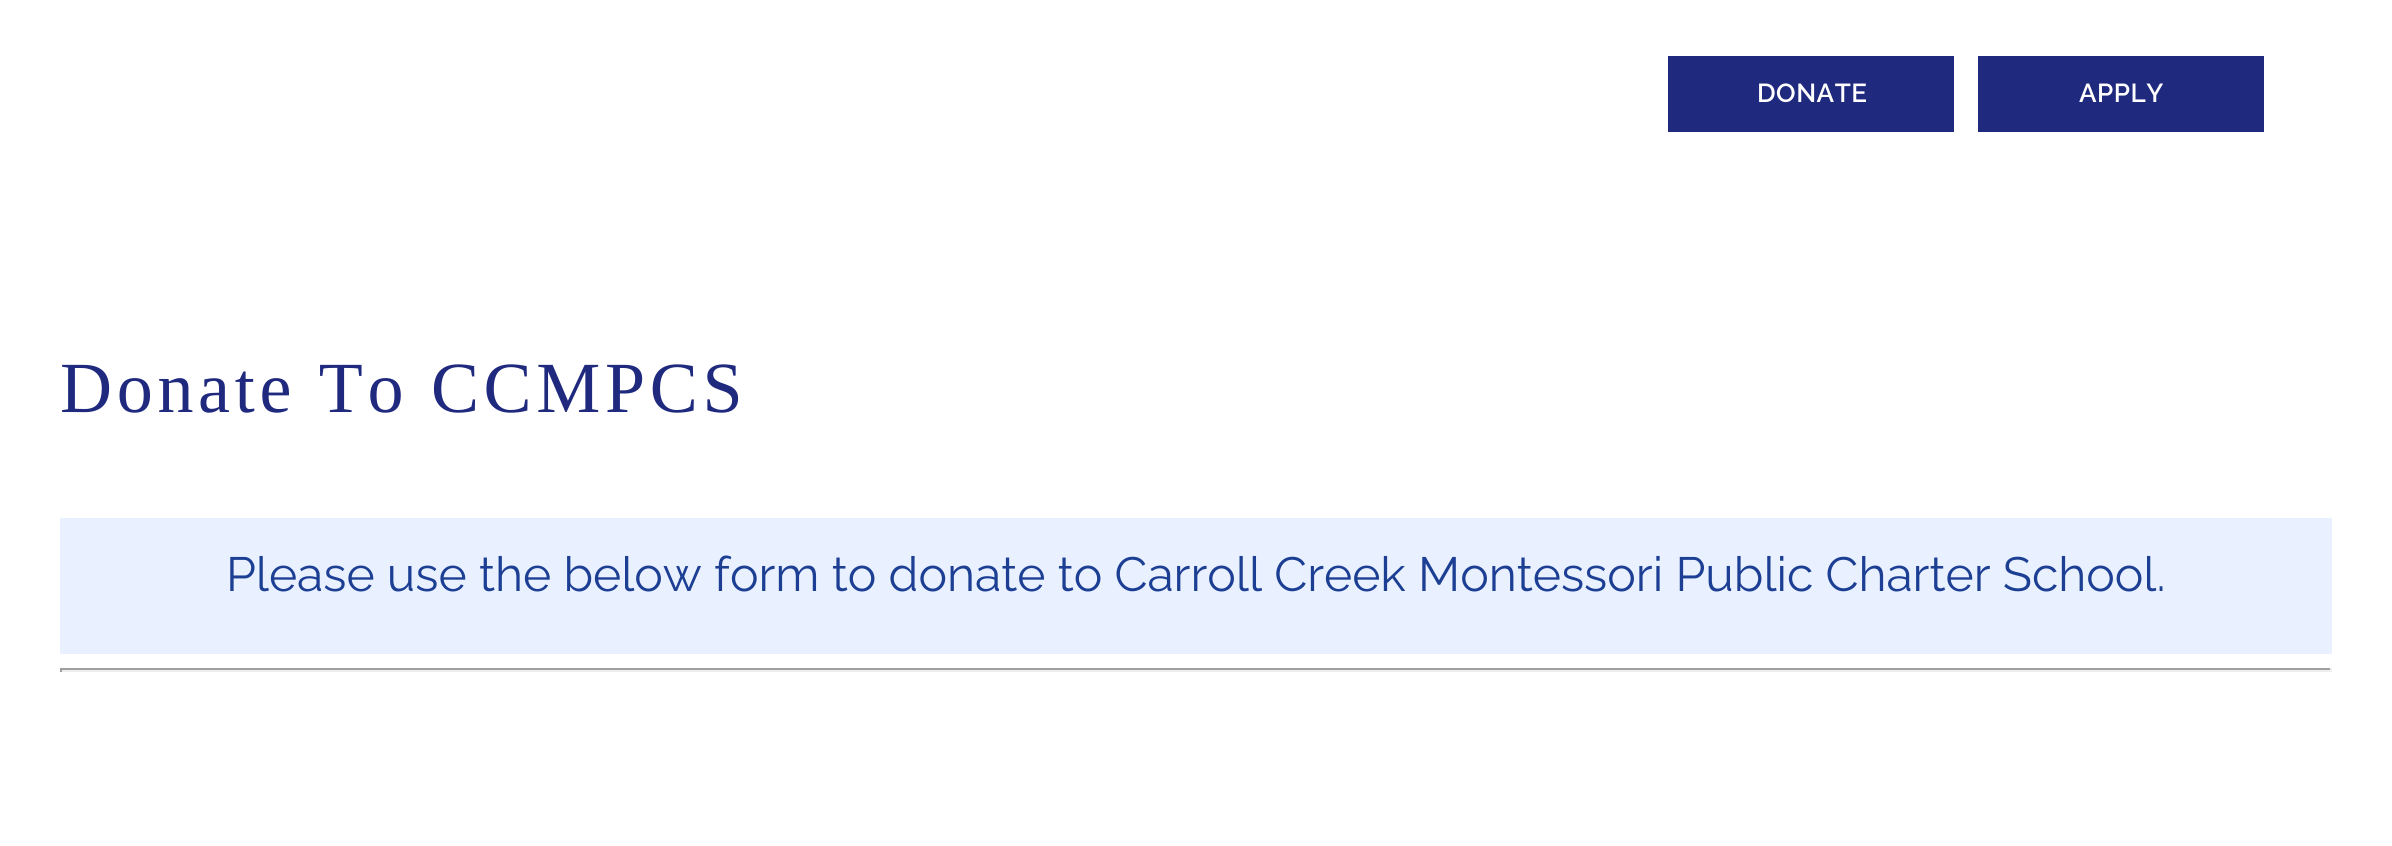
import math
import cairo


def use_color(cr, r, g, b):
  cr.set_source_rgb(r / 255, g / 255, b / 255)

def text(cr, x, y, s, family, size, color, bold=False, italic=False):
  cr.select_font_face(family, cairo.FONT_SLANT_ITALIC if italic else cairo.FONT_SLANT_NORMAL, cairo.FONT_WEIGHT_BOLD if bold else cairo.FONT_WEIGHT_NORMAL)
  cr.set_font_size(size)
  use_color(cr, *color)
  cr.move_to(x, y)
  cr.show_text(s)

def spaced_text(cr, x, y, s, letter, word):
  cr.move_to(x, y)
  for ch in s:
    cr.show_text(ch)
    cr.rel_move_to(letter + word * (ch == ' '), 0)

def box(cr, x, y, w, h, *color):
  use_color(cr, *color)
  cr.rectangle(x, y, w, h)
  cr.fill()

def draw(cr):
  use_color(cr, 255, 255, 255)
  cr.paint()
  box(cr, 1668, 56, 286, 76, 31, 41, 126)
  box(cr, 1978, 56, 286, 76, 31, 41, 126)
  box(cr, 60, 518, 2272, 136, 233, 240, 255)
  box(cr, 60, 668, 2272, 2, 159, 159, 159)
  box(cr, 2330, 668, 2, 4, 238, 238, 238)
  box(cr, 60, 670, 2272, 2, 238, 238, 238)
  box(cr, 60, 668, 2, 4, 159, 159, 159)
  cr.select_font_face("Raleway SemiBold")
  cr.set_font_size(26)
  use_color(cr, 255, 255, 255)
  spaced_text(cr, 1757, 102, "DONATE", 0.5, 0)
  spaced_text(cr, 2079, 102, "APPLY", 0.5, 0)
  cr.select_font_face("Liberation Serif")
  cr.set_font_size(72)
  use_color(cr, 31, 41, 126)
  spaced_text(cr, 60, 412, "Donate To CCMPCS", 4.7, 0)
  text(cr, 226, 591, "Please use the below form to donate to Carroll Creek Montessori Public Charter School.", "Raleway", 48, (28, 63, 148))


surface = cairo.ImageSurface(cairo.FORMAT_RGB24, 2392, 846)
cr = cairo.Context(surface)
options = cairo.FontOptions()
options.set_hint_metrics(cairo.HINT_METRICS_OFF)
options.set_hint_style(cairo.HINT_STYLE_NONE)
cr.set_font_options(options)
cr.set_miter_limit(4)
draw(cr)
surface.write_to_png("out.png")
